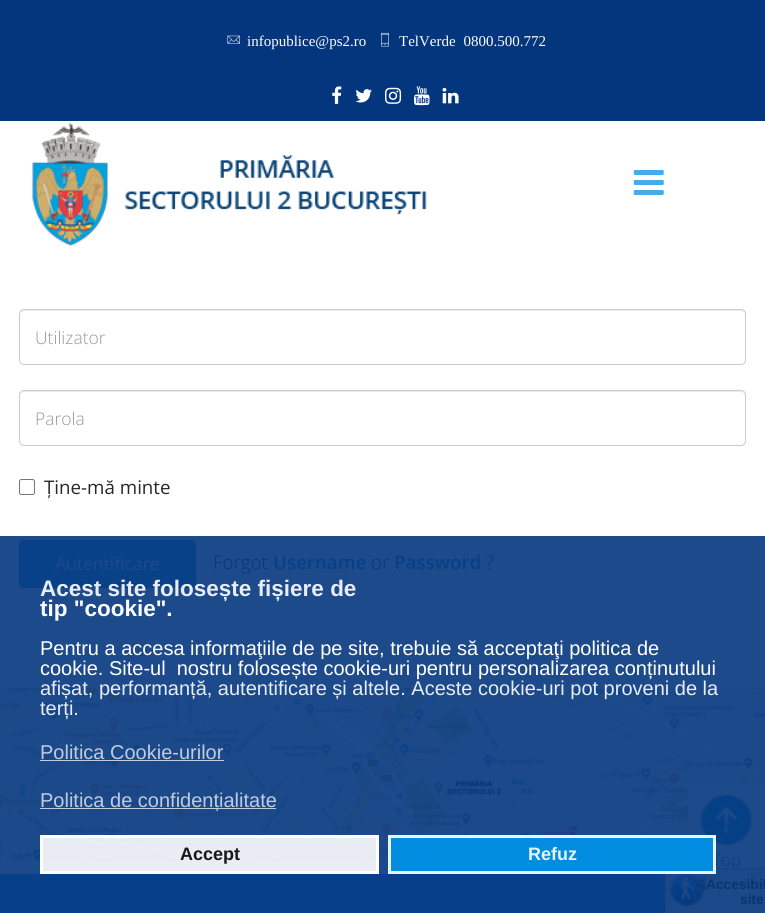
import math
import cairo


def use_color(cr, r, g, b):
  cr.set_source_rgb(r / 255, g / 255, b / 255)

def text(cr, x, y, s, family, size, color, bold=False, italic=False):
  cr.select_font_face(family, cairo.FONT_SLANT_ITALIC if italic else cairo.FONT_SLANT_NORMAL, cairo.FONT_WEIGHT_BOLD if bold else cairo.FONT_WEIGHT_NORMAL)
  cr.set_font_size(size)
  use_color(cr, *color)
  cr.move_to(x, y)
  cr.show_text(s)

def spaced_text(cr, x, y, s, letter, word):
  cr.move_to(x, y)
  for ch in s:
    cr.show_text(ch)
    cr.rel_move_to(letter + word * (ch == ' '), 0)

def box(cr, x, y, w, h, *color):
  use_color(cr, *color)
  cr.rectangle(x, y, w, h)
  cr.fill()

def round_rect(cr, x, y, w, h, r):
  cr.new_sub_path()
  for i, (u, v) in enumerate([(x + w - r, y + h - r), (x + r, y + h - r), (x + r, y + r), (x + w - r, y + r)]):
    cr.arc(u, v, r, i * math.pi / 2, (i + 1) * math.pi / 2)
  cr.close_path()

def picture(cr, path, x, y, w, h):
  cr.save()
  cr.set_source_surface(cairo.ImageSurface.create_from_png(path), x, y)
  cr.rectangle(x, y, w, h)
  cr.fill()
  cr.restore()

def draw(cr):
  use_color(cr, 255, 255, 255)
  cr.paint()
  box(cr, 0, 536, 765, 338, 29, 74, 138)
  box(cr, 0, 0, 765, 121, 4, 54, 125)
  picture(cr, "img_01.png", 227, 35, 13, 9)
  picture(cr, "img_02.png", 381, 32, 8, 15)
  picture(cr, "img_03.png", 332, 86, 10, 18)
  picture(cr, "img_04.png", 355, 89, 17, 14)
  picture(cr, "img_05.png", 385, 87, 17, 17)
  picture(cr, "img_06.png", 414, 86, 16, 20)
  picture(cr, "img_07.png", 442, 88, 17, 16)
  picture(cr, "img_08.png", 32, 122, 395, 124)
  picture(cr, "img_09.png", 633, 170, 31, 25)
  use_color(cr, 236, 236, 236)
  cr.new_path()
  cr.move_to(24, 311)
  cr.line_to(741, 311)
  cr.curve_to(743, 311, 745, 313, 745, 315)
  cr.curve_to(745, 312, 744, 310, 741, 310)
  cr.line_to(24, 310)
  cr.line_to(21, 311)
  cr.line_to(20, 312)
  cr.line_to(20, 315)
  cr.curve_to(20, 313, 22, 311, 24, 311)
  cr.close_path()
  cr.fill()
  round_rect(cr, 19.5, 309.5, 726, 55, 4.5)
  use_color(cr, 204, 204, 204)
  cr.set_line_width(1)
  cr.stroke()
  use_color(cr, 236, 236, 236)
  cr.new_path()
  cr.move_to(24, 392)
  cr.line_to(741, 392)
  cr.curve_to(743, 392, 745, 394, 745, 396)
  cr.curve_to(745, 393, 744, 391, 741, 391)
  cr.line_to(24, 391)
  cr.line_to(21, 392)
  cr.line_to(20, 393)
  cr.line_to(20, 396)
  cr.curve_to(20, 394, 22, 392, 24, 392)
  cr.close_path()
  cr.fill()
  round_rect(cr, 19.5, 390.5, 726, 55, 4.5)
  use_color(cr, 204, 204, 204)
  cr.stroke()
  round_rect(cr, 19.5, 479.5, 15, 15, 2)
  use_color(cr, 118, 118, 118)
  cr.stroke()
  use_color(cr, 8, 65, 136)
  round_rect(cr, 19.5, 540.5, 176, 47, 4.5)
  cr.fill_preserve()
  use_color(cr, 6, 63, 135)
  cr.stroke()
  picture(cr, "img_10.png", 0, 688, 765, 174)
  box(cr, 0, 874, 665, 39, 6, 64, 136)
  cr.set_source_rgba(1, 1, 1, 0.72)
  cr.rectangle(40, 760, 184, 1)
  cr.fill()
  cr.rectangle(40, 808, 236, 1)
  cr.fill()
  cr.set_source_rgba(1, 1, 1, 0.9)
  cr.rectangle(41.5, 836.5, 336, 36)
  cr.fill_preserve()
  use_color(cr, 253, 253, 254)
  cr.set_line_width(3)
  cr.stroke()
  use_color(cr, 29, 74, 138)
  round_rect(cr, 688, 783, 77, 106, 4)
  cr.fill()
  picture(cr, "img_11.png", 700, 795, 53, 50)
  text(cr, 247, 46, "infopublice@ps2.ro", "Liberation Serif", 15, (255, 255, 255))
  spaced_text(cr, 399, 46, "TelVerde 0800.500.772", 0, 4)
  text(cr, 35, 344, "Utilizator", "Open Sans Light", 17.5, (153, 153, 153))
  text(cr, 35, 425, "Parola", "Open Sans Light", 17.5, (153, 153, 153))
  text(cr, 44, 494, "Ține-mă minte", "Open Sans", 18.75, (39, 39, 39))
  text(cr, 55, 570, "Autentificare", "Open Sans", 17.5, (29, 74, 138))
  text(cr, 213, 569, "Forgot", "Open Sans Light", 18.75, (7, 53, 116))
  text(cr, 273, 569, "Username", "Open Sans SemiBold", 18.75, (6, 64, 136))
  text(cr, 371, 569, "or", "Open Sans Light", 18.75, (7, 53, 116))
  text(cr, 394, 569, "Password", "Open Sans SemiBold", 18.75, (6, 64, 136))
  text(cr, 486, 569, "?", "Open Sans Light", 18.75, (7, 53, 116))
  text(cr, 40, 596, "Acest site folosește fișiere de", "Liberation Sans", 22.5, (232, 237, 243), bold=True)
  text(cr, 40, 616, "tip \"cookie\".", "Liberation Sans", 22.5, (255, 255, 255), bold=True)
  text(cr, 40, 655, "Pentru a accesa informaţiile de pe site, trebuie să acceptaţi politica de", "Liberation Sans", 20, (255, 255, 255))
  text(cr, 40, 675, "cookie. Site-ul  nostru folosește cookie-uri pentru personalizarea conținutului", "Liberation Sans", 20, (255, 255, 255))
  text(cr, 40, 695, "afișat, performanță, autentificare și altele. Aceste cookie-uri pot proveni de la", "Liberation Sans", 20, (232, 237, 243))
  text(cr, 40, 715, "terți.", "Liberation Sans", 20, (232, 237, 243))
  text(cr, 40, 759, "Politica Cookie-urilor", "Liberation Sans", 20, (191, 204, 222))
  text(cr, 40, 807, "Politica de confidențialitate", "Liberation Sans", 20, (191, 204, 222))
  text(cr, 180, 860, "Accept", "Liberation Sans", 18, (23, 24, 24), bold=True)
  text(cr, 712, 866, "Top", "Open Sans Light", 17, (7, 58, 131))
  use_color(cr, 27, 72, 136)
  cr.rectangle(665.5, 868.5, 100, 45)
  cr.fill_preserve()
  use_color(cr, 22, 67, 131)
  cr.set_line_width(1)
  cr.stroke()
  cr.set_source_rgba(0, 0.584, 0.922, 0.9)
  cr.rectangle(389.5, 836.5, 325, 36)
  cr.fill_preserve()
  use_color(cr, 230, 244, 252)
  cr.set_line_width(3)
  cr.stroke()
  text(cr, 528, 860, "Refuz", "Liberation Sans", 18, (230, 244, 252), bold=True)
  picture(cr, "img_12.png", 669, 874, 39, 34)
  text(cr, 706, 889, "Accesibil", "Liberation Sans", 13.75, (7, 53, 116), bold=True)
  text(cr, 740, 904, "site", "Liberation Sans", 13.75, (7, 53, 116), bold=True)


surface = cairo.ImageSurface(cairo.FORMAT_RGB24, 765, 913)
cr = cairo.Context(surface)
options = cairo.FontOptions()
options.set_hint_metrics(cairo.HINT_METRICS_OFF)
options.set_hint_style(cairo.HINT_STYLE_NONE)
cr.set_font_options(options)
cr.set_miter_limit(4)
draw(cr)
surface.write_to_png("out.png")
